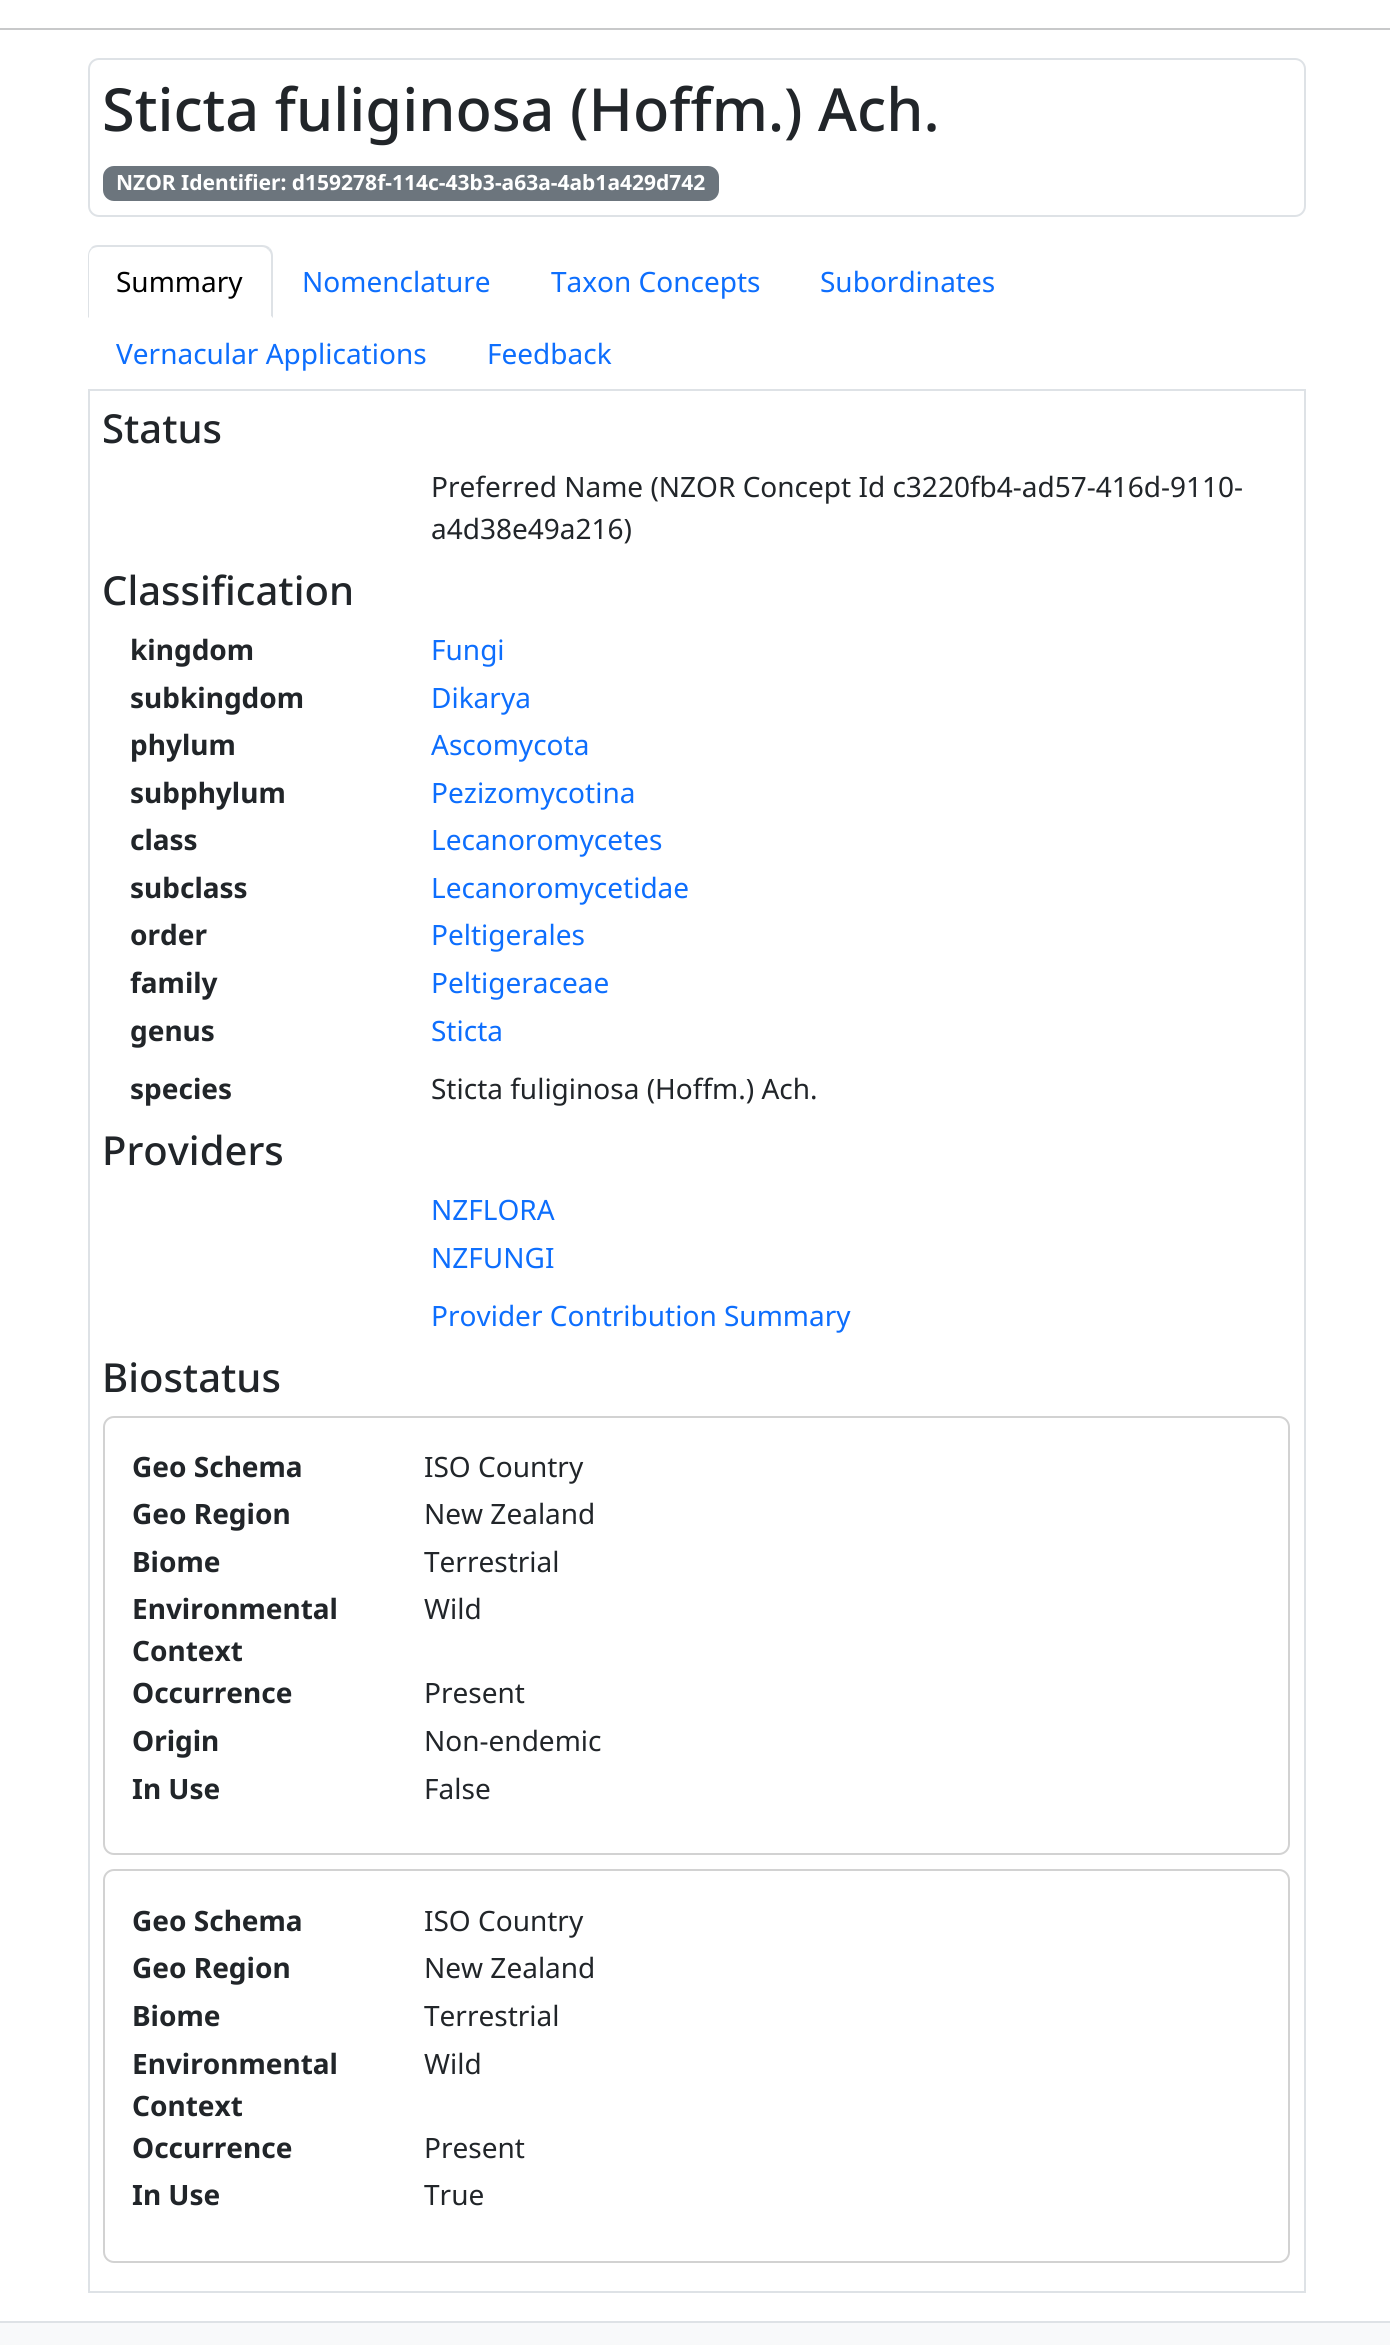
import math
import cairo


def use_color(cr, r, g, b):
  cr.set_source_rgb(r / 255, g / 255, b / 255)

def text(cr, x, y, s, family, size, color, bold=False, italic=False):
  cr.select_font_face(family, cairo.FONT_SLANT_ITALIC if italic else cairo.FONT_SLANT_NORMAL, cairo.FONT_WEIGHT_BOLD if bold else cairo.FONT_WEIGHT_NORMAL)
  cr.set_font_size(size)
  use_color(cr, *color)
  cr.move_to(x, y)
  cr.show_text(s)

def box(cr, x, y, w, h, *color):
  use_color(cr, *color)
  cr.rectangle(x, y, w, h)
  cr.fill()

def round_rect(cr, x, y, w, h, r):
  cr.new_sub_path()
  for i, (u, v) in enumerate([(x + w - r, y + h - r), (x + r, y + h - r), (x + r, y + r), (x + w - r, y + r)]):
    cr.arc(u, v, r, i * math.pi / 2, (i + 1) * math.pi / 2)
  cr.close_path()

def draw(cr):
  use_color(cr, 255, 255, 255)
  cr.paint()
  box(cr, 0, 28, 1390, 2, 200, 201, 202)
  round_rect(cr, 89, 59, 1216, 157, 10)
  use_color(cr, 222, 226, 230)
  cr.stroke()
  use_color(cr, 108, 117, 125)
  round_rect(cr, 103, 166, 616, 35, 11)
  cr.fill()
  box(cr, 88, 389, 1218, 2, 222, 226, 230)
  cr.new_path()
  cr.move_to(98, 245)
  cr.curve_to(95, 245, 92, 246, 91, 248)
  cr.line_to(92, 249)
  cr.curve_to(93, 248, 96, 247, 98, 247)
  cr.line_to(262, 247)
  cr.curve_to(264, 247, 267, 248, 268, 250)
  cr.line_to(270, 248)
  cr.curve_to(268, 246, 265, 245, 262, 245)
  cr.close_path()
  cr.fill()
  cr.new_path()
  cr.move_to(273, 318)
  cr.line_to(273, 256)
  cr.curve_to(273, 253, 272, 250, 270, 248)
  cr.line_to(268, 250)
  cr.curve_to(270, 251, 271, 254, 271, 256)
  cr.line_to(271, 316)
  cr.close_path()
  cr.fill()
  use_color(cr, 255, 255, 255)
  cr.new_path()
  cr.move_to(272, 318)
  cr.line_to(88, 318)
  cr.line_to(89, 317)
  cr.line_to(271, 317)
  cr.line_to(271, 316)
  cr.close_path()
  cr.fill()
  use_color(cr, 222, 226, 230)
  cr.new_path()
  cr.move_to(91, 248)
  cr.curve_to(89, 250, 88, 253, 88, 256)
  cr.line_to(88, 318)
  cr.line_to(89, 317)
  cr.line_to(89, 256)
  cr.curve_to(89, 253, 90, 251, 92, 249)
  cr.close_path()
  cr.fill()
  box(cr, 1304, 390, 2, 1903, 222, 226, 230)
  box(cr, 88, 2291, 1218, 2, 222, 226, 230)
  box(cr, 88, 390, 2, 1903, 222, 226, 230)
  round_rect(cr, 104, 1417, 1185, 437, 10)
  use_color(cr, 210, 210, 210)
  cr.stroke()
  round_rect(cr, 104, 1870, 1185, 392, 10)
  cr.stroke()
  box(cr, 0, 2323, 1390, 22, 248, 249, 250)
  box(cr, 0, 2321, 1390, 2, 222, 226, 230)
  text(cr, 102, 131, "Sticta fuliginosa (Hoffm.) Ach.", "Noto Sans Medium", 59.4, (33, 37, 41))
  text(cr, 116, 190, "NZOR Identifier: d159278f-114c-43b3-a63a-4ab1a429d742", "Noto Sans", 21, (255, 255, 255), bold=True)
  text(cr, 116, 292, "Summary", "Noto Sans", 28, (0, 0, 0))
  text(cr, 302, 292, "Nomenclature", "Noto Sans", 28, (13, 110, 253))
  text(cr, 551, 292, "Taxon Concepts", "Noto Sans", 28, (13, 110, 253))
  text(cr, 820, 292, "Subordinates", "Noto Sans", 28, (13, 110, 253))
  text(cr, 116, 364, "Vernacular Applications", "Noto Sans", 28, (13, 110, 253))
  text(cr, 487, 364, "Feedback", "Noto Sans", 28, (13, 110, 253))
  text(cr, 102, 443, "Status", "Noto Sans Medium", 40, (33, 37, 41))
  text(cr, 431, 497, "Preferred Name (NZOR Concept Id c3220fb4-ad57-416d-9110-", "Noto Sans", 28, (33, 37, 41))
  text(cr, 431, 539, "a4d38e49a216)", "Noto Sans", 28, (33, 37, 41))
  text(cr, 102, 605, "Classification", "Noto Sans Medium", 40, (33, 37, 41))
  text(cr, 130, 660, "kingdom", "Noto Sans", 28, (33, 37, 41), bold=True)
  text(cr, 431, 660, "Fungi", "Noto Sans", 28, (13, 110, 253))
  text(cr, 130, 708, "subkingdom", "Noto Sans", 28, (33, 37, 41), bold=True)
  text(cr, 431, 708, "Dikarya", "Noto Sans", 28, (13, 110, 253))
  text(cr, 130, 755, "phylum", "Noto Sans", 28, (33, 37, 41), bold=True)
  text(cr, 431, 755, "Ascomycota", "Noto Sans", 28, (13, 110, 253))
  text(cr, 130, 803, "subphylum", "Noto Sans", 28, (33, 37, 41), bold=True)
  text(cr, 431, 803, "Pezizomycotina", "Noto Sans", 28, (13, 110, 253))
  text(cr, 130, 850, "class", "Noto Sans", 28, (33, 37, 41), bold=True)
  text(cr, 431, 850, "Lecanoromycetes", "Noto Sans", 28, (13, 110, 253))
  text(cr, 130, 898, "subclass", "Noto Sans", 28, (33, 37, 41), bold=True)
  text(cr, 431, 898, "Lecanoromycetidae", "Noto Sans", 28, (13, 110, 253))
  text(cr, 130, 945, "order", "Noto Sans", 28, (33, 37, 41), bold=True)
  text(cr, 431, 945, "Peltigerales", "Noto Sans", 28, (13, 110, 253))
  text(cr, 130, 993, "family", "Noto Sans", 28, (33, 37, 41), bold=True)
  text(cr, 431, 993, "Peltigeraceae", "Noto Sans", 28, (13, 110, 253))
  text(cr, 130, 1041, "genus", "Noto Sans", 28, (33, 37, 41), bold=True)
  text(cr, 431, 1041, "Sticta", "Noto Sans", 28, (13, 110, 253))
  text(cr, 130, 1099, "species", "Noto Sans", 28, (33, 37, 41), bold=True)
  text(cr, 431, 1099, "Sticta fuliginosa (Hoffm.) Ach.", "Noto Sans", 28, (33, 37, 41))
  text(cr, 102, 1165, "Providers", "Noto Sans Medium", 40, (33, 37, 41))
  text(cr, 431, 1220, "NZFLORA", "Noto Sans", 28, (13, 110, 253))
  text(cr, 431, 1268, "NZFUNGI", "Noto Sans", 28, (13, 110, 253))
  text(cr, 431, 1326, "Provider Contribution Summary", "Noto Sans", 28, (13, 110, 253))
  text(cr, 102, 1392, "Biostatus", "Noto Sans Medium", 40, (33, 37, 41))
  text(cr, 132, 1477, "Geo Schema", "Noto Sans", 28, (33, 37, 41), bold=True)
  text(cr, 424, 1477, "ISO Country", "Noto Sans", 28, (33, 37, 41))
  text(cr, 132, 1524, "Geo Region", "Noto Sans", 28, (33, 37, 41), bold=True)
  text(cr, 424, 1524, "New Zealand", "Noto Sans", 28, (33, 37, 41))
  text(cr, 132, 1572, "Biome", "Noto Sans", 28, (33, 37, 41), bold=True)
  text(cr, 424, 1572, "Terrestrial", "Noto Sans", 28, (33, 37, 41))
  text(cr, 132, 1619, "Environmental", "Noto Sans", 28, (33, 37, 41), bold=True)
  text(cr, 132, 1661, "Context", "Noto Sans", 28, (33, 37, 41), bold=True)
  text(cr, 424, 1619, "Wild", "Noto Sans", 28, (33, 37, 41))
  text(cr, 132, 1703, "Occurrence", "Noto Sans", 28, (33, 37, 41), bold=True)
  text(cr, 424, 1703, "Present", "Noto Sans", 28, (33, 37, 41))
  text(cr, 132, 1751, "Origin", "Noto Sans", 28, (33, 37, 41), bold=True)
  text(cr, 424, 1751, "Non-endemic", "Noto Sans", 28, (33, 37, 41))
  text(cr, 132, 1799, "In Use", "Noto Sans", 28, (33, 37, 41), bold=True)
  text(cr, 424, 1799, "False", "Noto Sans", 28, (33, 37, 41))
  text(cr, 132, 1931, "Geo Schema", "Noto Sans", 28, (33, 37, 41), bold=True)
  text(cr, 424, 1931, "ISO Country", "Noto Sans", 28, (33, 37, 41))
  text(cr, 132, 1978, "Geo Region", "Noto Sans", 28, (33, 37, 41), bold=True)
  text(cr, 424, 1978, "New Zealand", "Noto Sans", 28, (33, 37, 41))
  text(cr, 132, 2026, "Biome", "Noto Sans", 28, (33, 37, 41), bold=True)
  text(cr, 424, 2026, "Terrestrial", "Noto Sans", 28, (33, 37, 41))
  text(cr, 132, 2074, "Environmental", "Noto Sans", 28, (33, 37, 41), bold=True)
  text(cr, 132, 2116, "Context", "Noto Sans", 28, (33, 37, 41), bold=True)
  text(cr, 424, 2074, "Wild", "Noto Sans", 28, (33, 37, 41))
  text(cr, 132, 2158, "Occurrence", "Noto Sans", 28, (33, 37, 41), bold=True)
  text(cr, 424, 2158, "Present", "Noto Sans", 28, (33, 37, 41))
  text(cr, 132, 2205, "In Use", "Noto Sans", 28, (33, 37, 41), bold=True)
  text(cr, 424, 2205, "True", "Noto Sans", 28, (33, 37, 41))


surface = cairo.ImageSurface(cairo.FORMAT_RGB24, 1390, 2345)
cr = cairo.Context(surface)
options = cairo.FontOptions()
options.set_hint_metrics(cairo.HINT_METRICS_OFF)
options.set_hint_style(cairo.HINT_STYLE_NONE)
cr.set_font_options(options)
cr.set_miter_limit(4)
draw(cr)
surface.write_to_png("out.png")
